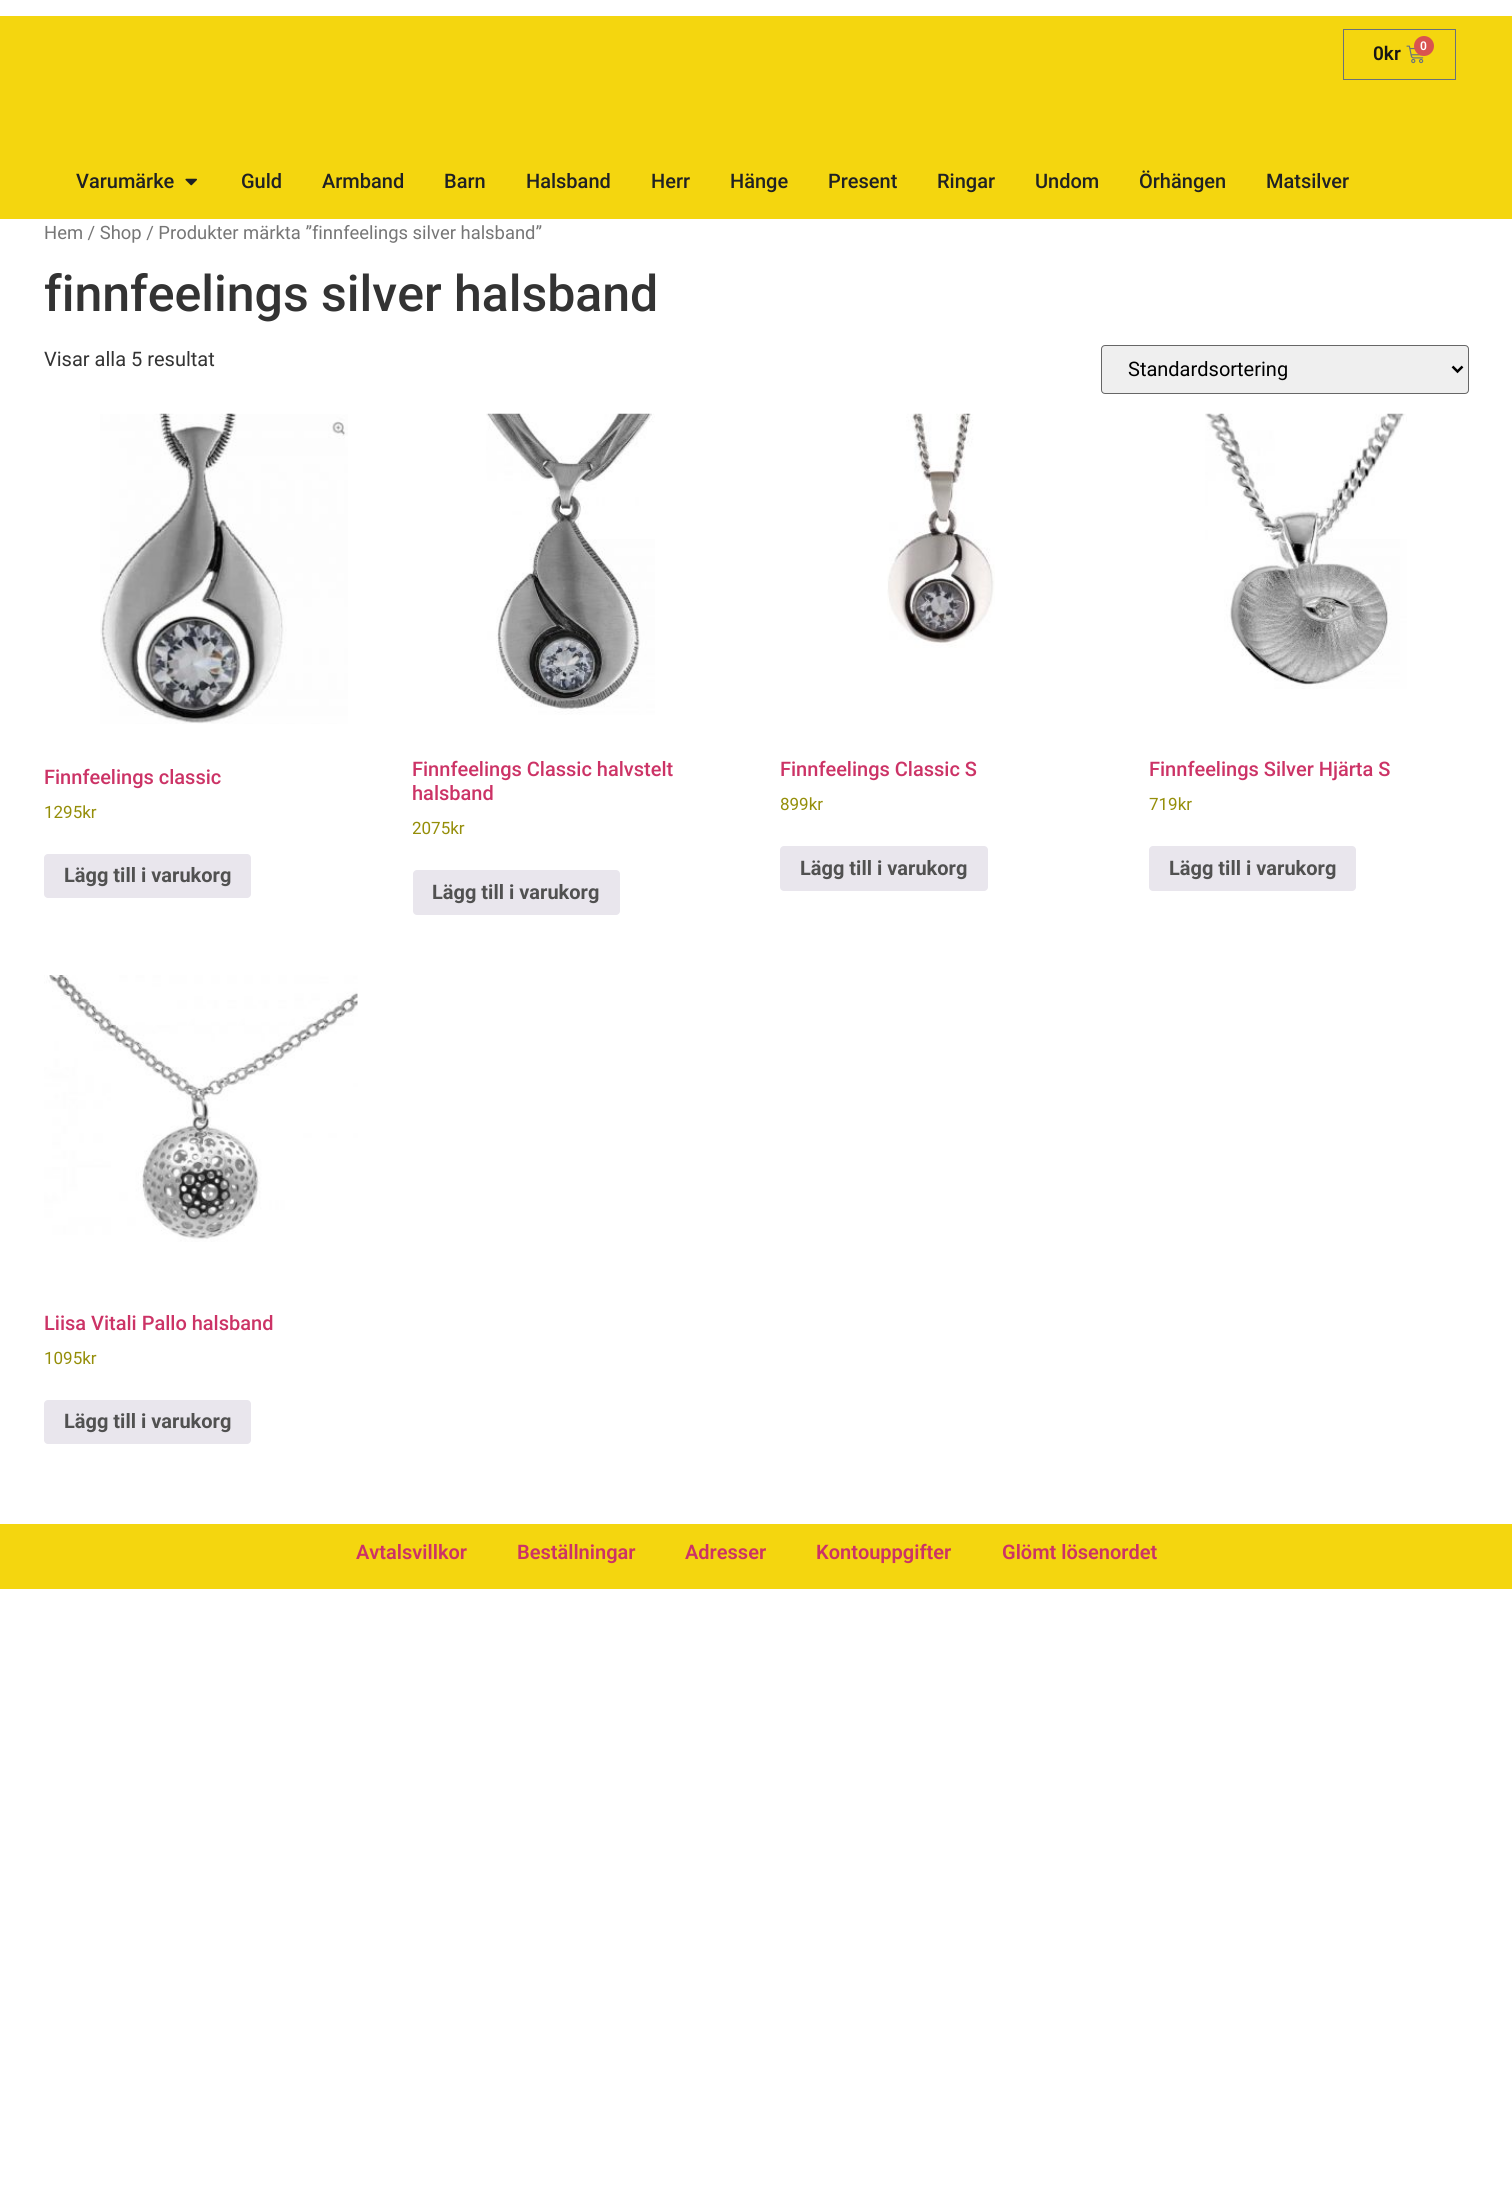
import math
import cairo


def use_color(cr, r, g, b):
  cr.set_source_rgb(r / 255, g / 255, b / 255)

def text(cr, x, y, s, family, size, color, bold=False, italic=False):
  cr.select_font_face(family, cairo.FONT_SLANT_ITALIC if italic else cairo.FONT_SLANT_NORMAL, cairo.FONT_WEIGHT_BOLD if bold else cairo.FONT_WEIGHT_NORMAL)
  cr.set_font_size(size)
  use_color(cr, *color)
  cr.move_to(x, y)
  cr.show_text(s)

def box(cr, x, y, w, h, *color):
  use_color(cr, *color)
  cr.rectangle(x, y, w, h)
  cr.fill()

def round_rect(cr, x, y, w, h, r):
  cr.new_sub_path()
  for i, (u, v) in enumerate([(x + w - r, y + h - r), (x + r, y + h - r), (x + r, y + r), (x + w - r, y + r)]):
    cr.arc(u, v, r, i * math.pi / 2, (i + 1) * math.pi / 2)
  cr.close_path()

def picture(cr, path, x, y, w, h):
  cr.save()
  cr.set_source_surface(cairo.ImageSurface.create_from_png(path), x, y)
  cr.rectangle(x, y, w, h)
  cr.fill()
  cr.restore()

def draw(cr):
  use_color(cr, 255, 255, 255)
  cr.paint()
  box(cr, 0, 16, 1512, 203, 244, 214, 15)
  cr.rectangle(1343.5, 29.5, 112, 50)
  use_color(cr, 105, 114, 125)
  cr.set_line_width(1)
  cr.stroke()
  picture(cr, "img_01.png", 1406, 45, 18, 19)
  use_color(cr, 217, 83, 79)
  cr.arc(1424, 46, 10, 0, 2 * math.pi)
  cr.fill()
  picture(cr, "img_02.png", 185, 178, 12, 8)
  use_color(cr, 239, 239, 239)
  round_rect(cr, 1101.5, 345.5, 367, 48, 3.5)
  cr.fill_preserve()
  use_color(cr, 102, 102, 102)
  cr.stroke()
  cr.new_path()
  cr.move_to(1452.5, 366.5)
  cr.line_to(1457.5, 371.5)
  cr.line_to(1462.5, 366.5)
  use_color(cr, 0, 0, 0)
  cr.set_line_width(2.5)
  cr.stroke()
  picture(cr, "img_03.png", 100, 413, 248, 311)
  use_color(cr, 233, 230, 237)
  round_rect(cr, 44, 854, 207, 44, 4)
  cr.fill()
  picture(cr, "img_04.png", 486, 413, 169, 302)
  round_rect(cr, 413, 870, 207, 45, 4)
  cr.fill()
  picture(cr, "img_05.png", 887, 413, 108, 235)
  round_rect(cr, 780, 846, 208, 45, 4)
  cr.fill()
  picture(cr, "img_06.png", 1205, 413, 202, 276)
  round_rect(cr, 1149, 846, 207, 45, 4)
  cr.fill()
  picture(cr, "img_07.png", 44, 975, 314, 267)
  round_rect(cr, 44, 1400, 207, 44, 4)
  cr.fill()
  box(cr, 0, 1524, 1512, 65, 244, 214, 15)
  text(cr, 1373, 60, "0kr", "Roboto SemiBold", 19, (23, 21, 21))
  text(cr, 1420, 50, "0", "Roboto SemiBold", 12, (255, 255, 255))
  text(cr, 76, 188, "Varumärke", "Roboto Medium", 20, (31, 33, 36))
  text(cr, 241, 188, "Guld", "Roboto Medium", 20, (31, 33, 36))
  text(cr, 322, 188, "Armband", "Roboto Medium", 20, (31, 33, 36))
  text(cr, 444, 188, "Barn", "Roboto Medium", 20, (31, 33, 36))
  text(cr, 526, 188, "Halsband", "Roboto Medium", 20, (31, 33, 36))
  text(cr, 651, 188, "Herr", "Roboto Medium", 20, (31, 33, 36))
  text(cr, 730, 188, "Hänge", "Roboto Medium", 20, (31, 33, 36))
  text(cr, 828, 188, "Present", "Roboto Medium", 20, (31, 33, 36))
  text(cr, 937, 188, "Ringar", "Roboto Medium", 20, (31, 33, 36))
  text(cr, 1035, 188, "Undom", "Roboto Medium", 20, (31, 33, 36))
  text(cr, 1139, 188, "Örhängen", "Roboto Medium", 20, (31, 33, 36))
  text(cr, 1266, 188, "Matsilver", "Roboto Medium", 20, (31, 33, 36))
  text(cr, 44, 239, "Hem / Shop / Produkter märkta ”finnfeelings silver halsband”", "Roboto", 18.4, (118, 118, 118))
  text(cr, 44, 311, "finnfeelings silver halsband", "Roboto Medium", 50, (51, 51, 51))
  text(cr, 44, 366, "Visar alla 5 resultat", "Roboto", 20, (51, 51, 51))
  text(cr, 1128, 376, "Standardsortering", "Roboto", 20, (0, 0, 0))
  text(cr, 44, 784, "Finnfeelings classic", "Roboto Medium", 20, (204, 51, 102))
  text(cr, 44, 818, "1295kr", "Roboto", 17, (149, 142, 9))
  text(cr, 64, 882, "Lägg till i varukorg", "Roboto", 20, (81, 81, 81), bold=True)
  text(cr, 412, 776, "Finnfeelings Classic halvstelt", "Roboto Medium", 20, (204, 51, 102))
  text(cr, 412, 800, "halsband", "Roboto Medium", 20, (204, 51, 102))
  text(cr, 412, 834, "2075kr", "Roboto", 17, (149, 142, 9))
  text(cr, 432, 899, "Lägg till i varukorg", "Roboto", 20, (81, 81, 81), bold=True)
  text(cr, 780, 776, "Finnfeelings Classic S", "Roboto Medium", 20, (204, 51, 102))
  text(cr, 780, 810, "899kr", "Roboto", 17, (149, 142, 9))
  text(cr, 800, 875, "Lägg till i varukorg", "Roboto", 20, (81, 81, 81), bold=True)
  text(cr, 1149, 776, "Finnfeelings Silver Hjärta S", "Roboto Medium", 20, (204, 51, 102))
  text(cr, 1149, 810, "719kr", "Roboto", 17, (149, 142, 9))
  text(cr, 1169, 875, "Lägg till i varukorg", "Roboto", 20, (81, 81, 81), bold=True)
  text(cr, 44, 1330, "Liisa Vitali Pallo halsband", "Roboto Medium", 20, (204, 51, 102))
  text(cr, 44, 1364, "1095kr", "Roboto", 17, (149, 142, 9))
  text(cr, 64, 1428, "Lägg till i varukorg", "Roboto", 20, (81, 81, 81), bold=True)
  text(cr, 356, 1559, "Avtalsvillkor", "Roboto SemiBold", 20, (204, 51, 102))
  text(cr, 517, 1559, "Beställningar", "Roboto SemiBold", 20, (204, 51, 102))
  text(cr, 685, 1559, "Adresser", "Roboto SemiBold", 20, (204, 51, 102))
  text(cr, 816, 1559, "Kontouppgifter", "Roboto SemiBold", 20, (204, 51, 102))
  text(cr, 1002, 1559, "Glömt lösenordet", "Roboto SemiBold", 20, (204, 51, 102))


surface = cairo.ImageSurface(cairo.FORMAT_RGB24, 1512, 2205)
cr = cairo.Context(surface)
options = cairo.FontOptions()
options.set_hint_metrics(cairo.HINT_METRICS_OFF)
options.set_hint_style(cairo.HINT_STYLE_NONE)
cr.set_font_options(options)
cr.set_miter_limit(4)
draw(cr)
surface.write_to_png("out.png")
